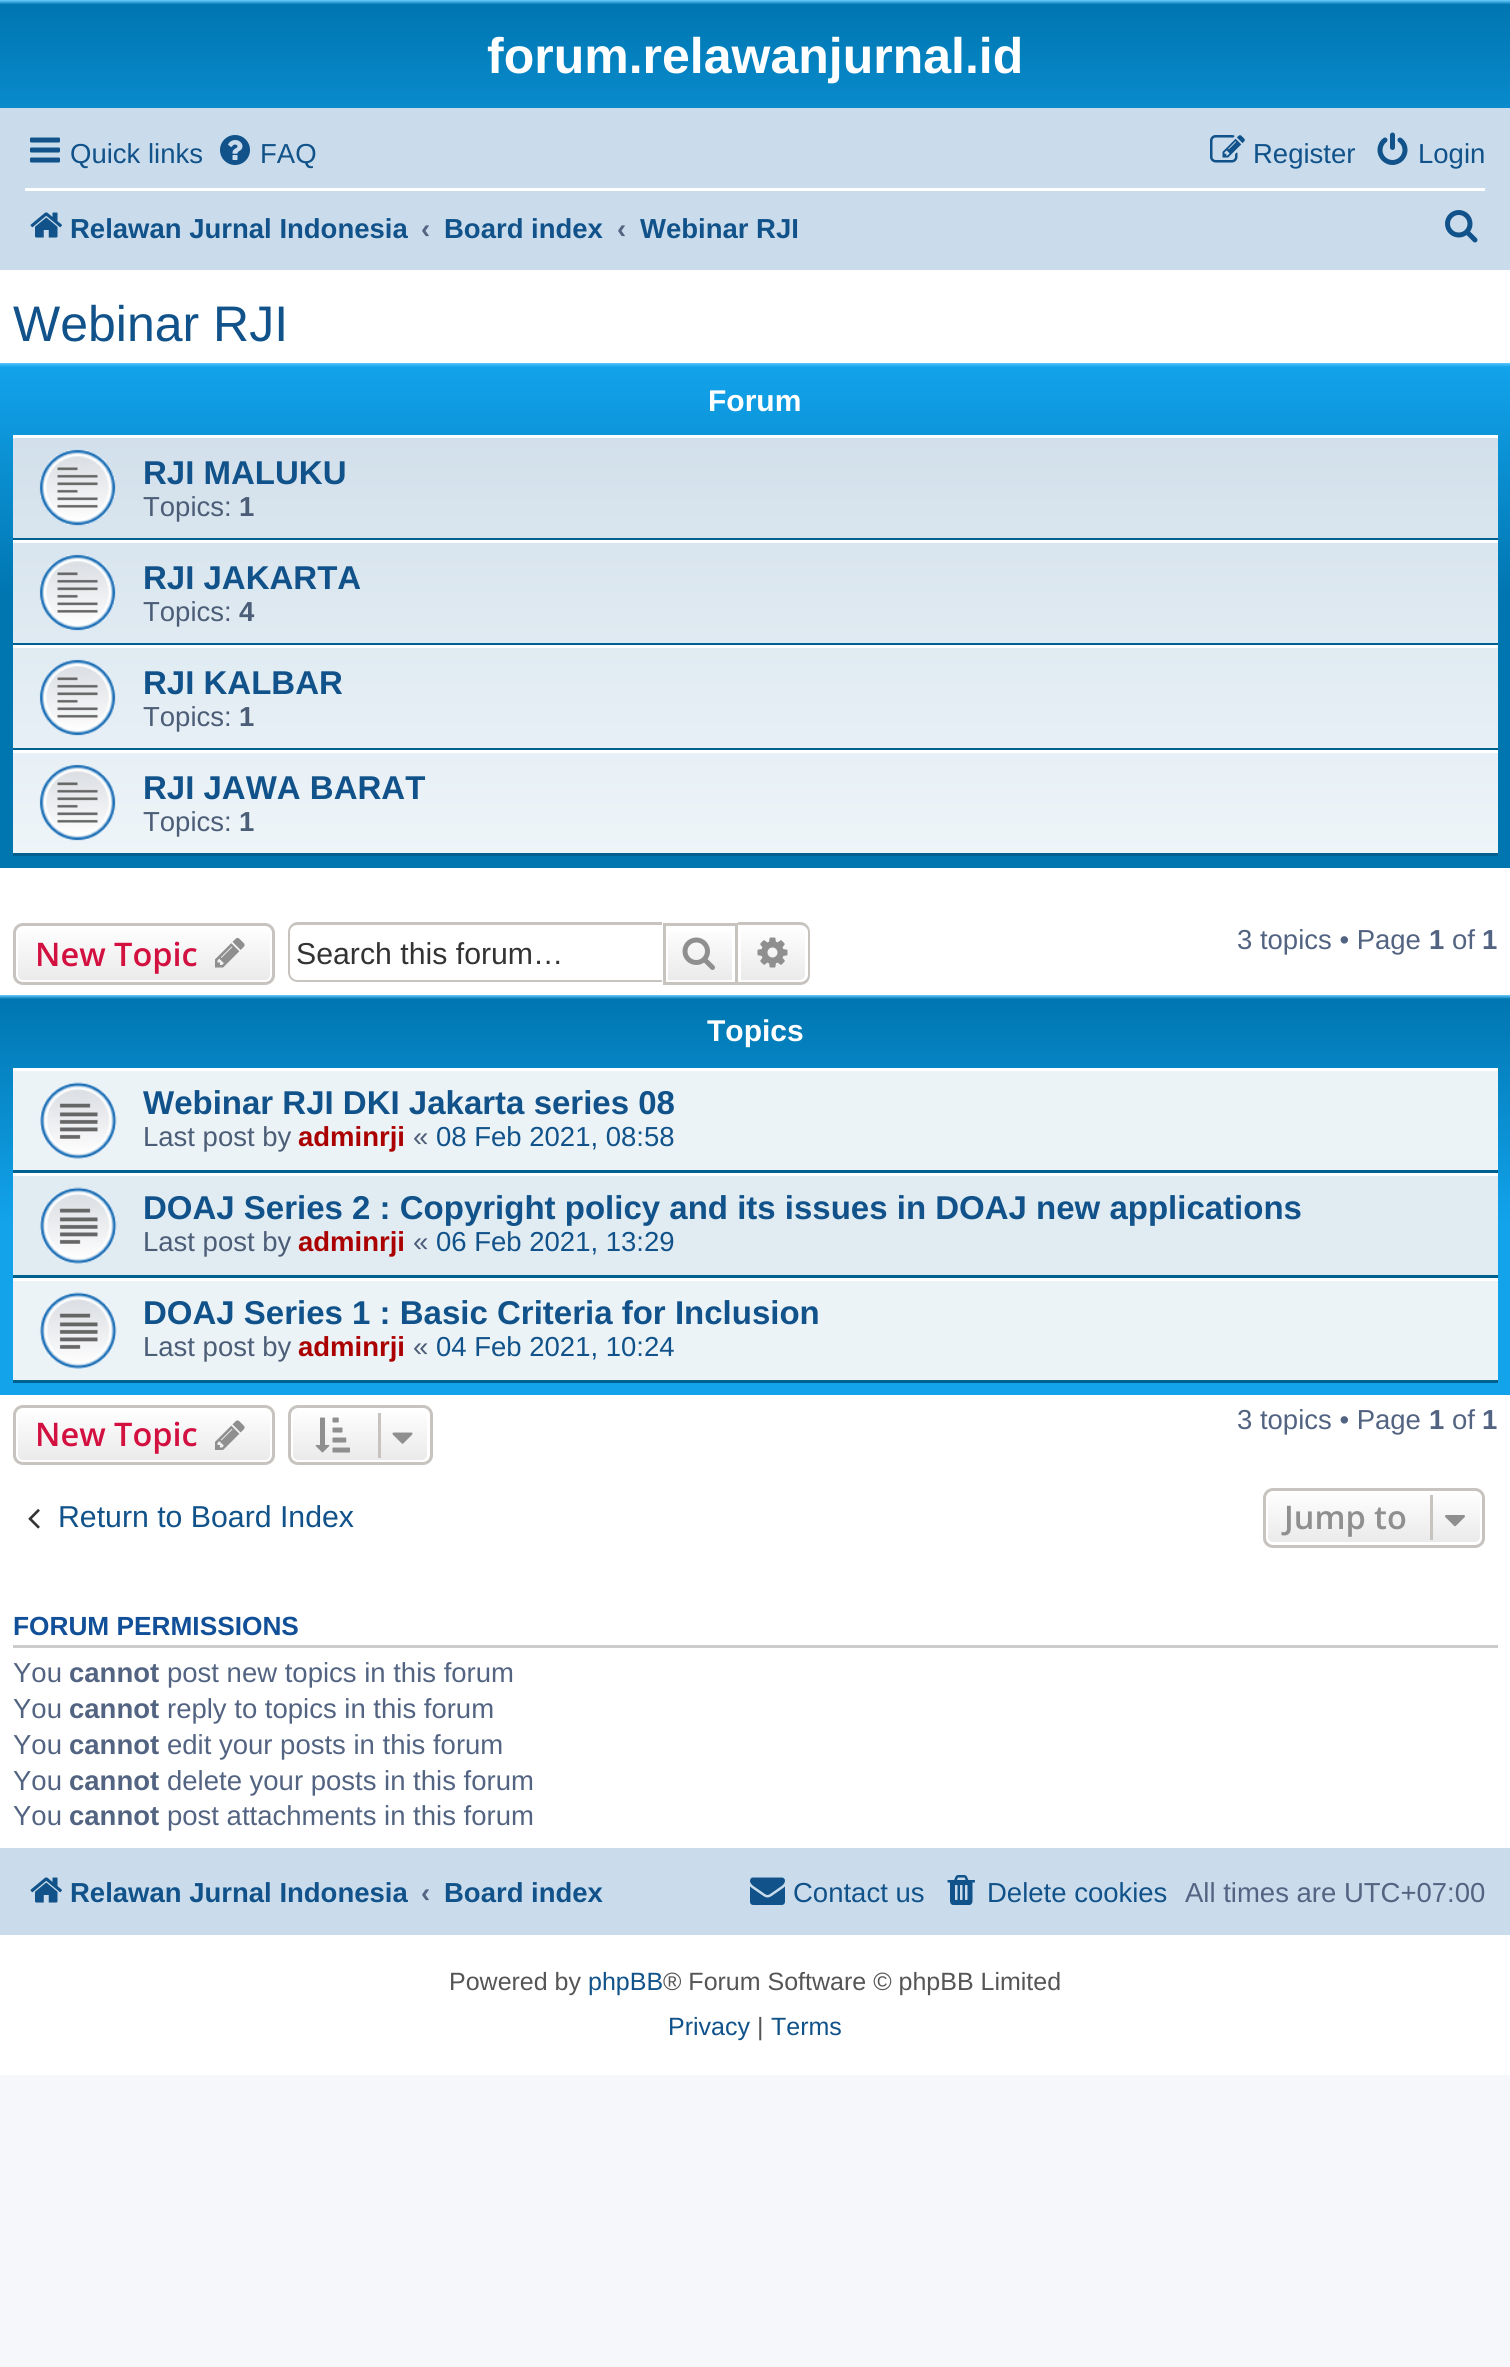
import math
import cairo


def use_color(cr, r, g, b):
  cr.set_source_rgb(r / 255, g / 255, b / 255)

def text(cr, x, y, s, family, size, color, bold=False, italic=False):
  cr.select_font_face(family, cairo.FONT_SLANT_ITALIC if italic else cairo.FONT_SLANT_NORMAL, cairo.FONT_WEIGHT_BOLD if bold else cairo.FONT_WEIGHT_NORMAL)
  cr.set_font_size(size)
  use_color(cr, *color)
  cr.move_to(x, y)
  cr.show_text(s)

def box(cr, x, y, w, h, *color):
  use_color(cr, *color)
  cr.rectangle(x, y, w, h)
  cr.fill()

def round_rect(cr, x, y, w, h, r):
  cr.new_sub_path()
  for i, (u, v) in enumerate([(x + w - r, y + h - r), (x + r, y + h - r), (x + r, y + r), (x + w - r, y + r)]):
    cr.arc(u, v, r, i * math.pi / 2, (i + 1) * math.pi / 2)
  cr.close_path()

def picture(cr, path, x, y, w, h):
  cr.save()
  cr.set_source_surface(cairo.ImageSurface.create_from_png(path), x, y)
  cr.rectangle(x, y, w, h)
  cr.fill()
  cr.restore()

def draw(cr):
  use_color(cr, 245, 247, 250)
  cr.paint()
  box(cr, 0, 270, 1510, 1805, 255, 255, 255)
  gradient = cairo.LinearGradient(755, 0, 755, 230)
  gradient.add_color_stop_rgba(0, 0.416, 0.808, 1, 1)
  gradient.add_color_stop_rgba(0.02, 0, 0.463, 0.694, 1)
  gradient.add_color_stop_rgba(1, 0.071, 0.639, 0.922, 1)
  cr.set_source(gradient)
  cr.rectangle(0, 0, 1510, 108)
  cr.fill()
  box(cr, 0, 108, 1510, 162, 202, 220, 235)
  picture(cr, "img_01.png", 30, 137, 30, 26)
  picture(cr, "img_02.png", 220, 135, 30, 30)
  picture(cr, "img_03.png", 1210, 135, 35, 28)
  picture(cr, "img_04.png", 1377, 132, 31, 33)
  box(cr, 25, 188, 1460, 3, 255, 255, 255)
  picture(cr, "img_05.png", 30, 212, 32, 26)
  picture(cr, "img_06.png", 1445, 210, 33, 33)
  gradient = cairo.LinearGradient(755, 362, 755, 868)
  gradient.add_color_stop_rgba(0, 0.416, 0.808, 1, 1)
  gradient.add_color_stop_rgba(0.01, 0.071, 0.639, 0.922, 1)
  gradient.add_color_stop_rgba(0.46, 0, 0.463, 0.694, 1)
  gradient.add_color_stop_rgba(1, 0, 0.463, 0.694, 1)
  cr.set_source(gradient)
  cr.rectangle(0, 363, 1510, 505)
  cr.fill()
  gradient = cairo.LinearGradient(755, 435, 755, 855)
  gradient.add_color_stop_rgba(0, 0.824, 0.878, 0.922, 1)
  gradient.add_color_stop_rgba(1, 0.933, 0.961, 0.976, 1)
  cr.set_source(gradient)
  cr.rectangle(13, 438, 1485, 415)
  cr.fill()
  box(cr, 13, 435, 1485, 3, 255, 255, 255)
  box(cr, 13, 538, 1485, 2, 0, 96, 143)
  picture(cr, "img_07.png", 39, 449, 77, 77)
  box(cr, 13, 540, 1485, 3, 255, 255, 255)
  box(cr, 13, 643, 1485, 2, 0, 96, 143)
  picture(cr, "img_08.png", 39, 554, 77, 77)
  box(cr, 13, 645, 1485, 3, 255, 255, 255)
  box(cr, 13, 748, 1485, 2, 0, 96, 143)
  picture(cr, "img_09.png", 39, 659, 77, 77)
  box(cr, 13, 750, 1485, 3, 255, 255, 255)
  box(cr, 13, 853, 1485, 3, 0, 96, 143)
  picture(cr, "img_10.png", 39, 764, 77, 77)
  cr.save()
  round_rect(cr, 13, 923, 262, 62, 10)
  cr.clip()
  gradient = cairo.LinearGradient(144, 925, 144, 983)
  gradient.add_color_stop_rgba(0, 1, 1, 1, 1)
  gradient.add_color_stop_rgba(1, 0.914, 0.914, 0.914, 1)
  cr.set_source(gradient)
  cr.rectangle(13, 925, 262, 58)
  cr.fill()
  cr.restore()
  round_rect(cr, 16.5, 926.5, 255, 55, 6.5)
  use_color(cr, 255, 255, 255)
  cr.set_line_width(3)
  cr.stroke()
  round_rect(cr, 14.5, 924.5, 259, 59, 8.5)
  use_color(cr, 199, 195, 191)
  cr.stroke()
  picture(cr, "img_11.png", 215, 937, 30, 31)
  cr.set_fill_rule(cairo.FILL_RULE_EVEN_ODD)
  cr.new_path()
  cr.move_to(298, 922)
  cr.line_to(662, 922)
  cr.line_to(662, 982)
  cr.line_to(298, 982)
  cr.curve_to(292, 982, 288, 978, 288, 972)
  cr.line_to(288, 932)
  cr.curve_to(288, 927, 292, 922, 298, 922)
  cr.close_path()
  cr.move_to(298, 925)
  cr.line_to(662, 925)
  cr.line_to(662, 980)
  cr.line_to(298, 980)
  cr.curve_to(293, 980, 290, 977, 290, 972)
  cr.line_to(290, 932)
  cr.curve_to(290, 928, 293, 925, 298, 925)
  cr.close_path()
  cr.fill()
  gradient = cairo.LinearGradient(700, 925, 700, 983)
  gradient.add_color_stop_rgba(0, 1, 1, 1, 1)
  gradient.add_color_stop_rgba(1, 0.914, 0.914, 0.914, 1)
  cr.set_source(gradient)
  cr.rectangle(668, 932, 64, 48)
  cr.fill()
  cr.rectangle(664.5, 924.5, 72, 59)
  use_color(cr, 199, 195, 191)
  cr.stroke()
  picture(cr, "img_12.png", 682, 937, 33, 33)
  gradient = cairo.LinearGradient(773, 925, 773, 983)
  gradient.add_color_stop_rgba(0, 1, 1, 1, 1)
  gradient.add_color_stop_rgba(1, 0.914, 0.914, 0.914, 1)
  cr.set_source(gradient)
  cr.new_path()
  cr.move_to(739.5, 926.5)
  cr.line_to(800, 926.5)
  cr.curve_to(803.5, 926.5, 806.5, 929.5, 806.5, 933)
  cr.line_to(806.5, 975)
  cr.curve_to(806.5, 978.5, 803.5, 981.5, 800, 981.5)
  cr.line_to(739.5, 981.5)
  cr.close_path()
  cr.fill_preserve()
  use_color(cr, 255, 255, 255)
  cr.stroke()
  use_color(cr, 199, 195, 191)
  cr.new_path()
  cr.move_to(738, 922)
  cr.line_to(800, 922)
  cr.curve_to(806, 922, 810, 927, 810, 932)
  cr.line_to(810, 975)
  cr.curve_to(810, 981, 806, 985, 800, 985)
  cr.line_to(738, 985)
  cr.close_path()
  cr.move_to(738, 925)
  cr.line_to(800, 925)
  cr.curve_to(804, 925, 808, 928, 808, 932)
  cr.line_to(808, 975)
  cr.curve_to(808, 979, 804, 982, 800, 982)
  cr.line_to(738, 982)
  cr.close_path()
  cr.fill()
  picture(cr, "img_13.png", 757, 937, 31, 31)
  gradient = cairo.LinearGradient(755, 995, 755, 1395)
  gradient.add_color_stop_rgba(0, 0.416, 0.808, 1, 1)
  gradient.add_color_stop_rgba(0.01, 0, 0.463, 0.694, 1)
  gradient.add_color_stop_rgba(0.57, 0.071, 0.639, 0.922, 1)
  gradient.add_color_stop_rgba(1, 0.071, 0.639, 0.922, 1)
  cr.set_source(gradient)
  cr.rectangle(0, 995, 1510, 400)
  cr.fill()
  box(cr, 13, 1071, 1485, 99, 236, 243, 247)
  box(cr, 13, 1068, 1485, 3, 255, 255, 255)
  box(cr, 13, 1170, 1485, 3, 0, 96, 143)
  picture(cr, "img_14.png", 39, 1082, 78, 77)
  box(cr, 13, 1176, 1485, 99, 225, 235, 242)
  box(cr, 13, 1173, 1485, 3, 255, 255, 255)
  box(cr, 13, 1275, 1485, 3, 0, 96, 143)
  picture(cr, "img_15.png", 39, 1187, 78, 77)
  box(cr, 13, 1281, 1485, 99, 236, 243, 247)
  box(cr, 13, 1278, 1485, 3, 255, 255, 255)
  box(cr, 13, 1380, 1485, 3, 0, 96, 143)
  picture(cr, "img_14.png", 39, 1292, 78, 77)
  cr.save()
  cr.set_fill_rule(cairo.FILL_RULE_WINDING)
  round_rect(cr, 13, 1405, 262, 60, 10)
  cr.clip()
  gradient = cairo.LinearGradient(144, 1408, 144, 1463)
  gradient.add_color_stop_rgba(0, 1, 1, 1, 1)
  gradient.add_color_stop_rgba(1, 0.914, 0.914, 0.914, 1)
  cr.set_source(gradient)
  cr.rectangle(13, 1408, 262, 55)
  cr.fill()
  cr.restore()
  round_rect(cr, 16.5, 1409.5, 255, 52, 6.5)
  use_color(cr, 255, 255, 255)
  cr.stroke()
  round_rect(cr, 14.5, 1406.5, 259, 57, 8.5)
  use_color(cr, 199, 195, 191)
  cr.stroke()
  picture(cr, "img_16.png", 215, 1420, 30, 30)
  cr.save()
  cr.set_fill_rule(cairo.FILL_RULE_WINDING)
  round_rect(cr, 288, 1405, 145, 60, 10)
  cr.clip()
  gradient = cairo.LinearGradient(360, 1408, 360, 1463)
  gradient.add_color_stop_rgba(0, 1, 1, 1, 1)
  gradient.add_color_stop_rgba(1, 0.914, 0.914, 0.914, 1)
  cr.set_source(gradient)
  cr.rectangle(288, 1408, 145, 55)
  cr.fill()
  cr.restore()
  round_rect(cr, 291.5, 1409.5, 137, 52, 6.5)
  use_color(cr, 255, 255, 255)
  cr.stroke()
  round_rect(cr, 289.5, 1406.5, 142, 57, 8.5)
  use_color(cr, 199, 195, 191)
  cr.stroke()
  picture(cr, "img_17.png", 315, 1417, 35, 36)
  box(cr, 378, 1413, 3, 45, 199, 195, 191)
  picture(cr, "img_18.png", 392, 1432, 21, 12)
  picture(cr, "img_19.png", 28, 1509, 12, 20)
  cr.save()
  cr.set_fill_rule(cairo.FILL_RULE_WINDING)
  round_rect(cr, 1263, 1488, 222, 60, 10)
  cr.clip()
  gradient = cairo.LinearGradient(1374, 1490, 1374, 1545)
  gradient.add_color_stop_rgba(0, 1, 1, 1, 1)
  gradient.add_color_stop_rgba(1, 0.914, 0.914, 0.914, 1)
  cr.set_source(gradient)
  cr.rectangle(1263, 1490, 222, 55)
  cr.fill()
  cr.restore()
  round_rect(cr, 1266.5, 1491.5, 215, 52, 6.5)
  use_color(cr, 255, 255, 255)
  cr.stroke()
  round_rect(cr, 1264.5, 1489.5, 219, 57, 8.5)
  use_color(cr, 199, 195, 191)
  cr.stroke()
  box(cr, 1430, 1495, 3, 45, 199, 195, 191)
  picture(cr, "img_20.png", 1445, 1515, 20, 12)
  box(cr, 13, 1645, 1485, 3, 204, 204, 204)
  box(cr, 0, 1848, 1510, 87, 202, 220, 235)
  picture(cr, "img_05.png", 30, 1877, 32, 26)
  picture(cr, "img_21.png", 750, 1877, 35, 28)
  picture(cr, "img_22.png", 947, 1875, 28, 30)
  text(cr, 487, 73, "forum.relawanjurnal.id", "Liberation Sans", 50, (255, 255, 255), bold=True)
  text(cr, 70, 163, "Quick links", "Liberation Sans", 27.5, (16, 82, 137))
  text(cr, 260, 163, "FAQ", "Liberation Sans", 27.5, (16, 82, 137))
  text(cr, 1253, 163, "Register", "Liberation Sans", 27.5, (16, 82, 137))
  text(cr, 1418, 163, "Login", "Liberation Sans", 27.5, (16, 82, 137))
  text(cr, 70, 238, "Relawan Jurnal Indonesia", "Liberation Sans", 27.5, (16, 82, 137), bold=True)
  text(cr, 421, 238, "‹", "Liberation Sans", 27.5, (83, 100, 130), bold=True)
  text(cr, 444, 238, "Board index", "Liberation Sans", 27.5, (16, 82, 137), bold=True)
  text(cr, 617, 238, "‹", "Liberation Sans", 27.5, (83, 100, 130), bold=True)
  text(cr, 640, 238, "Webinar RJI", "Liberation Sans", 27.5, (16, 82, 137), bold=True)
  text(cr, 13, 341, "Webinar RJI", "Liberation Sans", 50, (16, 82, 137))
  text(cr, 708, 411, "Forum", "Liberation Sans", 30, (255, 255, 255), bold=True)
  text(cr, 143, 484, "RJI MALUKU", "Liberation Sans", 33, (16, 82, 137), bold=True)
  text(cr, 143, 516, "Topics:", "Liberation Sans", 27.5, (76, 93, 119))
  text(cr, 239, 516, "1", "Liberation Sans", 27.5, (76, 93, 119), bold=True)
  text(cr, 143, 589, "RJI JAKARTA", "Liberation Sans", 33, (16, 82, 137), bold=True)
  text(cr, 143, 621, "Topics:", "Liberation Sans", 27.5, (76, 93, 119))
  text(cr, 239, 621, "4", "Liberation Sans", 27.5, (76, 93, 119), bold=True)
  text(cr, 143, 694, "RJI KALBAR", "Liberation Sans", 33, (16, 82, 137), bold=True)
  text(cr, 143, 726, "Topics:", "Liberation Sans", 27.5, (76, 93, 119))
  text(cr, 239, 726, "1", "Liberation Sans", 27.5, (76, 93, 119), bold=True)
  text(cr, 143, 799, "RJI JAWA BARAT", "Liberation Sans", 33, (16, 82, 137), bold=True)
  text(cr, 143, 831, "Topics:", "Liberation Sans", 27.5, (76, 93, 119))
  text(cr, 239, 831, "1", "Liberation Sans", 27.5, (76, 93, 119), bold=True)
  text(cr, 35, 966, "New Topic", "Open Sans SemiBold", 32.5, (211, 17, 65))
  text(cr, 296, 964, "Search this forum…", "Liberation Sans", 30.25, (51, 51, 51))
  text(cr, 1237, 949, "3 topics • Page", "Liberation Sans", 27.5, (83, 100, 130))
  text(cr, 1429, 949, "1", "Liberation Sans", 27.5, (83, 100, 130), bold=True)
  text(cr, 1452, 949, "of", "Liberation Sans", 27.5, (83, 100, 130))
  text(cr, 1482, 949, "1", "Liberation Sans", 27.5, (83, 100, 130), bold=True)
  text(cr, 707, 1041, "Topics", "Liberation Sans", 30, (255, 255, 255), bold=True)
  text(cr, 143, 1114, "Webinar RJI DKI Jakarta series 08", "Liberation Sans", 33, (16, 82, 137), bold=True)
  text(cr, 143, 1146, "Last post by", "Liberation Sans", 27.5, (76, 93, 119))
  text(cr, 298, 1146, "adminrji", "Liberation Sans", 27.5, (170, 0, 0), bold=True)
  text(cr, 413, 1146, "«", "Liberation Sans", 27.5, (76, 93, 119))
  text(cr, 436, 1146, "08 Feb 2021, 08:58", "Liberation Sans", 27.5, (16, 82, 137))
  text(cr, 143, 1219, "DOAJ Series 2 : Copyright policy and its issues in DOAJ new applications", "Liberation Sans", 33, (16, 82, 137), bold=True)
  text(cr, 143, 1251, "Last post by", "Liberation Sans", 27.5, (76, 93, 119))
  text(cr, 298, 1251, "adminrji", "Liberation Sans", 27.5, (170, 0, 0), bold=True)
  text(cr, 413, 1251, "«", "Liberation Sans", 27.5, (76, 93, 119))
  text(cr, 436, 1251, "06 Feb 2021, 13:29", "Liberation Sans", 27.5, (16, 82, 137))
  text(cr, 143, 1324, "DOAJ Series 1 : Basic Criteria for Inclusion", "Liberation Sans", 33, (16, 82, 137), bold=True)
  text(cr, 143, 1356, "Last post by", "Liberation Sans", 27.5, (76, 93, 119))
  text(cr, 298, 1356, "adminrji", "Liberation Sans", 27.5, (170, 0, 0), bold=True)
  text(cr, 413, 1356, "«", "Liberation Sans", 27.5, (76, 93, 119))
  text(cr, 436, 1356, "04 Feb 2021, 10:24", "Liberation Sans", 27.5, (16, 82, 137))
  text(cr, 35, 1446, "New Topic", "Open Sans SemiBold", 32.5, (211, 17, 65))
  text(cr, 1237, 1429, "3 topics • Page", "Liberation Sans", 27.5, (83, 100, 130))
  text(cr, 1429, 1429, "1", "Liberation Sans", 27.5, (83, 100, 130), bold=True)
  text(cr, 1452, 1429, "of", "Liberation Sans", 27.5, (83, 100, 130))
  text(cr, 1482, 1429, "1", "Liberation Sans", 27.5, (83, 100, 130), bold=True)
  text(cr, 58, 1527, "Return to Board Index", "Liberation Sans", 30.25, (16, 82, 137))
  text(cr, 1284, 1529, "Jump to", "Open Sans SemiBold", 32.5, (143, 143, 143))
  text(cr, 13, 1635, "FORUM PERMISSIONS", "Liberation Sans", 26.25, (17, 80, 152), bold=True)
  text(cr, 13, 1682, "You", "Liberation Sans", 27.5, (83, 100, 130))
  text(cr, 69, 1682, "cannot", "Liberation Sans", 27.5, (83, 100, 130), bold=True)
  text(cr, 167, 1682, "post new topics in this forum", "Liberation Sans", 27.5, (83, 100, 130))
  text(cr, 13, 1718, "You", "Liberation Sans", 27.5, (83, 100, 130))
  text(cr, 69, 1718, "cannot", "Liberation Sans", 27.5, (83, 100, 130), bold=True)
  text(cr, 167, 1718, "reply to topics in this forum", "Liberation Sans", 27.5, (83, 100, 130))
  text(cr, 13, 1754, "You", "Liberation Sans", 27.5, (83, 100, 130))
  text(cr, 69, 1754, "cannot", "Liberation Sans", 27.5, (83, 100, 130), bold=True)
  text(cr, 167, 1754, "edit your posts in this forum", "Liberation Sans", 27.5, (83, 100, 130))
  text(cr, 13, 1790, "You", "Liberation Sans", 27.5, (83, 100, 130))
  text(cr, 69, 1790, "cannot", "Liberation Sans", 27.5, (83, 100, 130), bold=True)
  text(cr, 167, 1790, "delete your posts in this forum", "Liberation Sans", 27.5, (83, 100, 130))
  text(cr, 13, 1825, "You", "Liberation Sans", 27.5, (83, 100, 130))
  text(cr, 69, 1825, "cannot", "Liberation Sans", 27.5, (83, 100, 130), bold=True)
  text(cr, 167, 1825, "post attachments in this forum", "Liberation Sans", 27.5, (83, 100, 130))
  text(cr, 70, 1902, "Relawan Jurnal Indonesia", "Liberation Sans", 27.5, (16, 82, 137), bold=True)
  text(cr, 421, 1902, "‹", "Liberation Sans", 27.5, (83, 100, 130), bold=True)
  text(cr, 444, 1902, "Board index", "Liberation Sans", 27.5, (16, 82, 137), bold=True)
  text(cr, 793, 1902, "Contact us", "Liberation Sans", 27.5, (16, 82, 137))
  text(cr, 987, 1902, "Delete cookies", "Liberation Sans", 27.5, (16, 82, 137))
  text(cr, 1185, 1902, "All times are UTC+07:00", "Liberation Sans", 27.5, (83, 100, 130))
  text(cr, 449, 1990, "Powered by", "Liberation Sans", 25, (85, 85, 85))
  text(cr, 588, 1990, "phpBB", "Liberation Sans", 25, (16, 82, 137))
  text(cr, 663, 1990, "® Forum Software © phpBB Limited", "Liberation Sans", 25, (85, 85, 85))
  text(cr, 668, 2035, "Privacy", "Liberation Sans", 25, (16, 82, 137))
  text(cr, 757, 2035, "|", "Liberation Sans", 25, (85, 85, 85))
  text(cr, 771, 2035, "Terms", "Liberation Sans", 25, (16, 82, 137))


surface = cairo.ImageSurface(cairo.FORMAT_RGB24, 1510, 2367)
cr = cairo.Context(surface)
options = cairo.FontOptions()
options.set_hint_metrics(cairo.HINT_METRICS_OFF)
options.set_hint_style(cairo.HINT_STYLE_NONE)
cr.set_font_options(options)
cr.set_miter_limit(4)
draw(cr)
surface.write_to_png("out.png")
